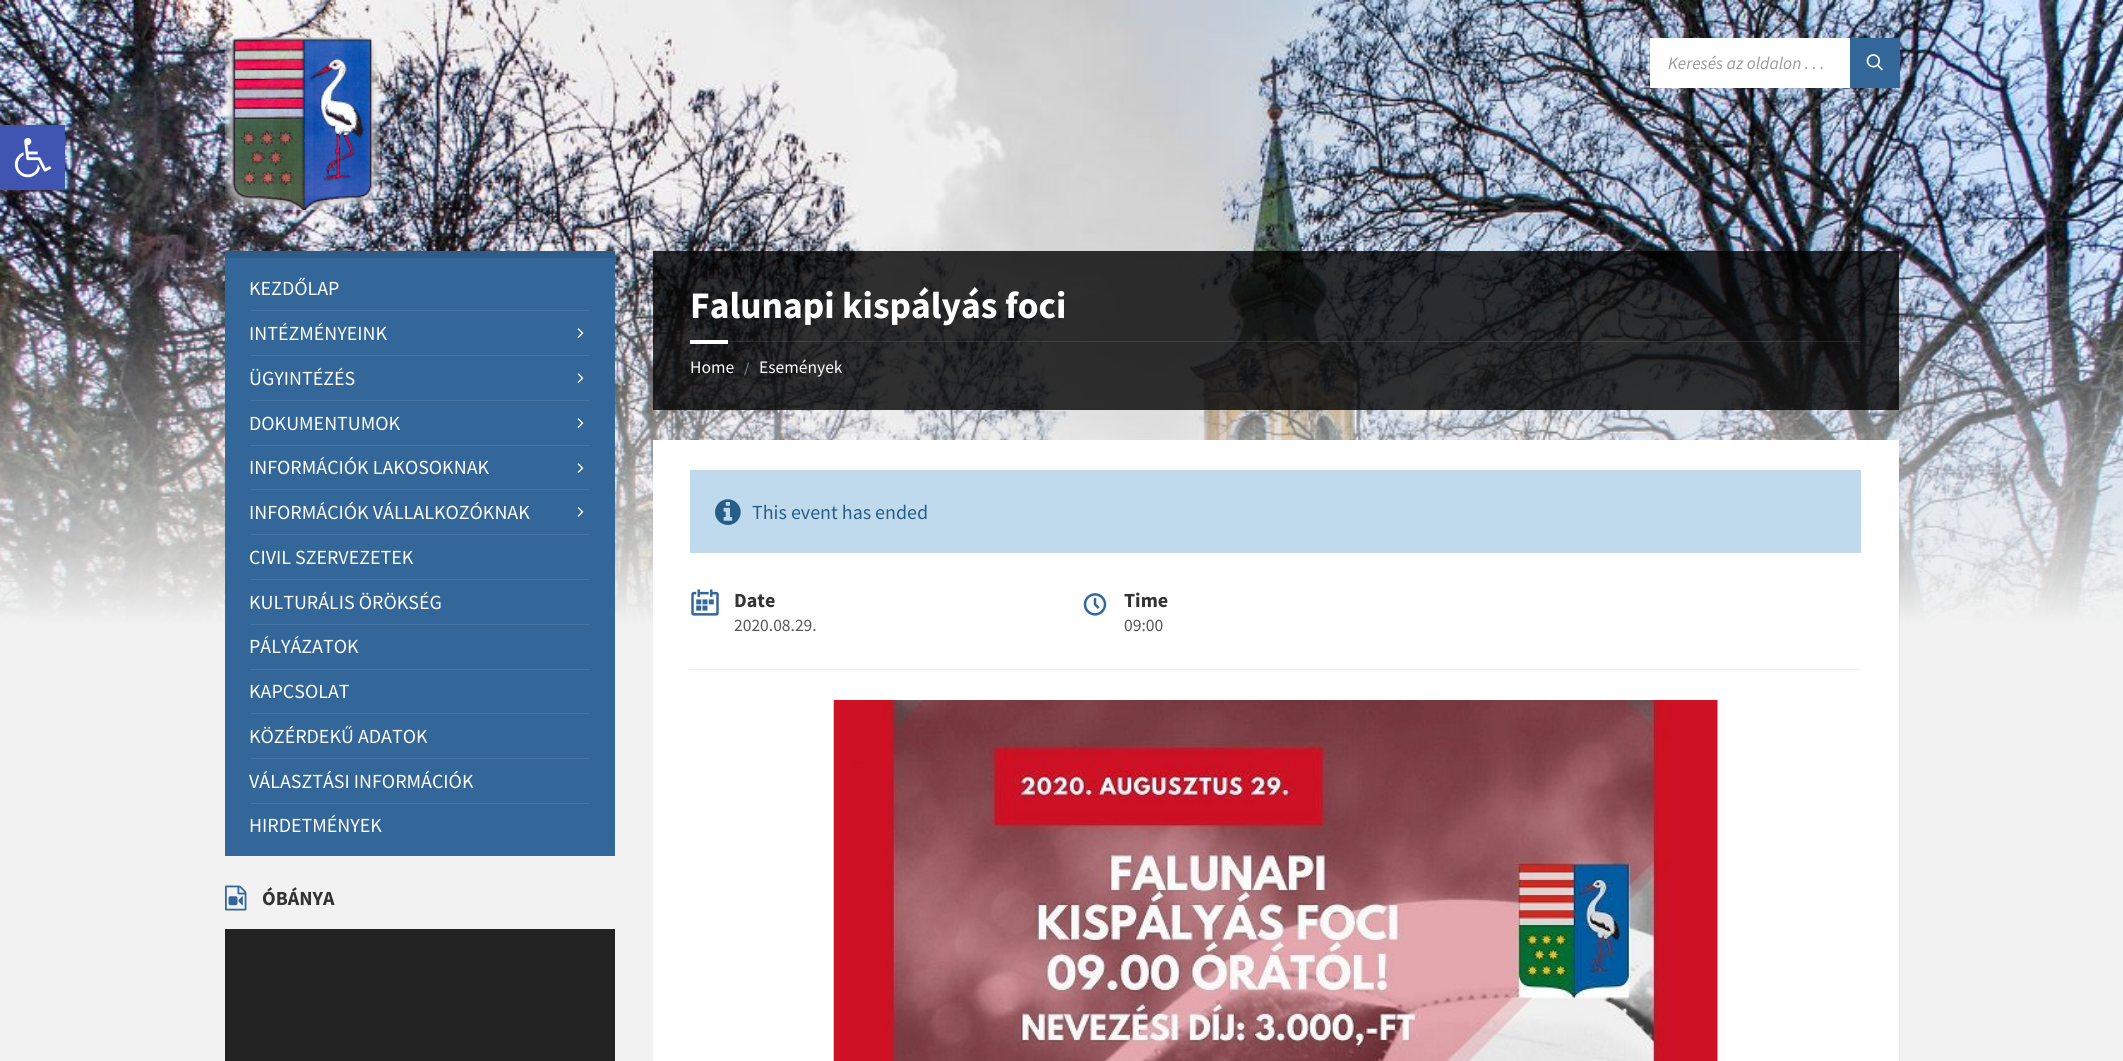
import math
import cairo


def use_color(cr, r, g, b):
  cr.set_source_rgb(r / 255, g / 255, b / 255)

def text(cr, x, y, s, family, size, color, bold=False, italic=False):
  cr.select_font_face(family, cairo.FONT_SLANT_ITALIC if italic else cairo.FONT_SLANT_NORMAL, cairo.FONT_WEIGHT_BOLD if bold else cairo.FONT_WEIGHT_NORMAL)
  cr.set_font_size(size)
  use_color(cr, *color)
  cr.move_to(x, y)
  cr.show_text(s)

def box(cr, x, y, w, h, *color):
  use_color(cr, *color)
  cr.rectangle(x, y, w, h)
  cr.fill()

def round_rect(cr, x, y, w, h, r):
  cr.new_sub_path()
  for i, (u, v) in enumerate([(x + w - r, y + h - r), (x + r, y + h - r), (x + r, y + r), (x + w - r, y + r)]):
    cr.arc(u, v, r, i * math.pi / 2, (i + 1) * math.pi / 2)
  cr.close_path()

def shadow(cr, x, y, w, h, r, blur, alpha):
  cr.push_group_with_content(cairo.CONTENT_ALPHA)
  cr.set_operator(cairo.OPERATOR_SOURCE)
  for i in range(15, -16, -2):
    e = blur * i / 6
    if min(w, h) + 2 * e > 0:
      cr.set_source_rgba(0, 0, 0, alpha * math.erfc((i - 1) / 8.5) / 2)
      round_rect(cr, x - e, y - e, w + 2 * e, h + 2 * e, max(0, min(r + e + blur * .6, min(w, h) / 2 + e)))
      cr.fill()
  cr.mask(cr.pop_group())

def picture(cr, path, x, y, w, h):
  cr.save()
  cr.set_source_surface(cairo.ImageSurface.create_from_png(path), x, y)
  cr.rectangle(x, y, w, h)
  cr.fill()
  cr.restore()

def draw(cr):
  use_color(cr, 242, 242, 242)
  cr.paint()
  picture(cr, "img_02.png", 0, 0, 2123, 625)
  use_color(cr, 0, 0, 0)
  shadow(cr, 0, 125, 65, 65, 0, 6, 0.1)
  box(cr, 0, 125, 65, 65, 64, 84, 178)
  picture(cr, "img_01.png", 14, 138, 38, 40)
  picture(cr, "img_03.png", 225, 37, 155, 173)
  box(cr, 1650, 38, 200, 50, 255, 255, 255)
  box(cr, 1850, 38, 50, 50, 51, 102, 153)
  picture(cr, "img_04.png", 1866, 54, 17, 17)
  box(cr, 225, 258, 390, 598, 51, 102, 153)
  box(cr, 225, 251, 390, 7, 46, 92, 138)
  box(cr, 250, 310, 340, 1, 71, 117, 163)
  picture(cr, "img_05.png", 577, 328, 7, 10)
  box(cr, 250, 355, 340, 1, 71, 117, 163)
  picture(cr, "img_05.png", 577, 373, 7, 10)
  box(cr, 250, 400, 340, 1, 71, 117, 163)
  picture(cr, "img_05.png", 577, 418, 7, 10)
  box(cr, 250, 445, 340, 1, 71, 117, 163)
  picture(cr, "img_05.png", 577, 463, 7, 10)
  box(cr, 250, 489, 340, 1, 71, 117, 163)
  picture(cr, "img_06.png", 577, 507, 7, 10)
  box(cr, 250, 534, 340, 1, 71, 117, 163)
  box(cr, 250, 579, 340, 1, 71, 117, 163)
  box(cr, 250, 624, 340, 1, 71, 117, 163)
  box(cr, 250, 669, 340, 1, 71, 117, 163)
  box(cr, 250, 713, 340, 1, 71, 117, 163)
  box(cr, 250, 758, 340, 1, 71, 117, 163)
  box(cr, 250, 803, 340, 1, 71, 117, 163)
  picture(cr, "img_07.png", 225, 885, 22, 26)
  box(cr, 225, 929, 390, 132, 34, 34, 34)
  cr.set_source_rgba(0, 0, 0, 0.8)
  cr.rectangle(653, 251, 1246, 159)
  cr.fill()
  cr.set_source_rgba(1, 1, 1, 0.1)
  cr.rectangle(728, 341, 1133, 1)
  cr.fill()
  box(cr, 690, 340, 38, 4, 255, 255, 255)
  cr.set_source_rgba(0, 0, 0, 0.05)
  cr.new_path()
  cr.move_to(654, 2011)
  cr.line_to(654, 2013)
  cr.line_to(1900, 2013)
  cr.line_to(1900, 441)
  cr.line_to(1899, 441)
  cr.line_to(1899, 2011)
  cr.close_path()
  cr.fill()
  box(cr, 653, 440, 1246, 621, 255, 255, 255)
  box(cr, 690, 470, 1171, 83, 192, 218, 237)
  picture(cr, "img_08.png", 715, 499, 26, 26)
  picture(cr, "img_09.png", 691, 589, 28, 27)
  picture(cr, "img_10.png", 1083, 593, 24, 23)
  box(cr, 690, 669, 1171, 1, 240, 240, 240)
  picture(cr, "img_11.png", 833, 700, 885, 361)
  text(cr, 1668, 69, "Keresés az oldalon . . .", "Source Sans Pro", 17.5, (154, 154, 154), italic=True)
  text(cr, 249, 295, "KEZDŐLAP", "Source Sans Pro", 20, (255, 255, 255))
  text(cr, 249, 340, "INTÉZMÉNYEINK", "Source Sans Pro", 20, (255, 255, 255))
  text(cr, 249, 385, "ÜGYINTÉZÉS", "Source Sans Pro", 20, (255, 255, 255))
  text(cr, 249, 430, "DOKUMENTUMOK", "Source Sans Pro", 20, (255, 255, 255))
  text(cr, 249, 474, "INFORMÁCIÓK LAKOSOKNAK", "Source Sans Pro", 20, (255, 255, 255))
  text(cr, 249, 519, "INFORMÁCIÓK VÁLLALKOZÓKNAK", "Source Sans Pro", 20, (255, 255, 255))
  text(cr, 249, 564, "CIVIL SZERVEZETEK", "Source Sans Pro", 20, (255, 255, 255))
  text(cr, 249, 609, "KULTURÁLIS ÖRÖKSÉG", "Source Sans Pro", 20, (255, 255, 255))
  text(cr, 249, 653, "PÁLYÁZATOK", "Source Sans Pro", 20, (255, 255, 255))
  text(cr, 249, 698, "KAPCSOLAT", "Source Sans Pro", 20, (255, 255, 255))
  text(cr, 249, 743, "KÖZÉRDEKŰ ADATOK", "Source Sans Pro", 20, (255, 255, 255))
  text(cr, 249, 788, "VÁLASZTÁSI INFORMÁCIÓK", "Source Sans Pro", 20, (255, 255, 255))
  text(cr, 249, 832, "HIRDETMÉNYEK", "Source Sans Pro", 20, (255, 255, 255))
  text(cr, 262, 905, "ÓBÁNYA", "Source Sans Pro", 20, (51, 51, 51), bold=True)
  text(cr, 690, 318, "Falunapi kispályás foci", "Source Sans Pro", 37.5, (255, 255, 255), bold=True)
  text(cr, 690, 373, "Home", "Source Sans Pro", 17.5, (255, 255, 255))
  text(cr, 744, 373, "/", "Source Sans Pro", 15, (138, 148, 155))
  text(cr, 759, 373, "Események", "Source Sans Pro", 17.5, (255, 255, 255))
  text(cr, 752, 519, "This event has ended", "Source Sans Pro", 20, (38, 94, 136))
  text(cr, 734, 607, "Date", "Source Sans Pro", 20, (51, 51, 51), bold=True)
  text(cr, 734, 631, "2020.08.29.", "Source Sans Pro", 17.5, (86, 86, 86))
  text(cr, 1124, 607, "Time", "Source Sans Pro", 20, (51, 51, 51), bold=True)
  text(cr, 1124, 631, "09:00", "Source Sans Pro", 17.5, (86, 86, 86))


surface = cairo.ImageSurface(cairo.FORMAT_RGB24, 2123, 1061)
cr = cairo.Context(surface)
options = cairo.FontOptions()
options.set_hint_metrics(cairo.HINT_METRICS_OFF)
options.set_hint_style(cairo.HINT_STYLE_NONE)
cr.set_font_options(options)
cr.set_miter_limit(4)
draw(cr)
surface.write_to_png("out.png")
